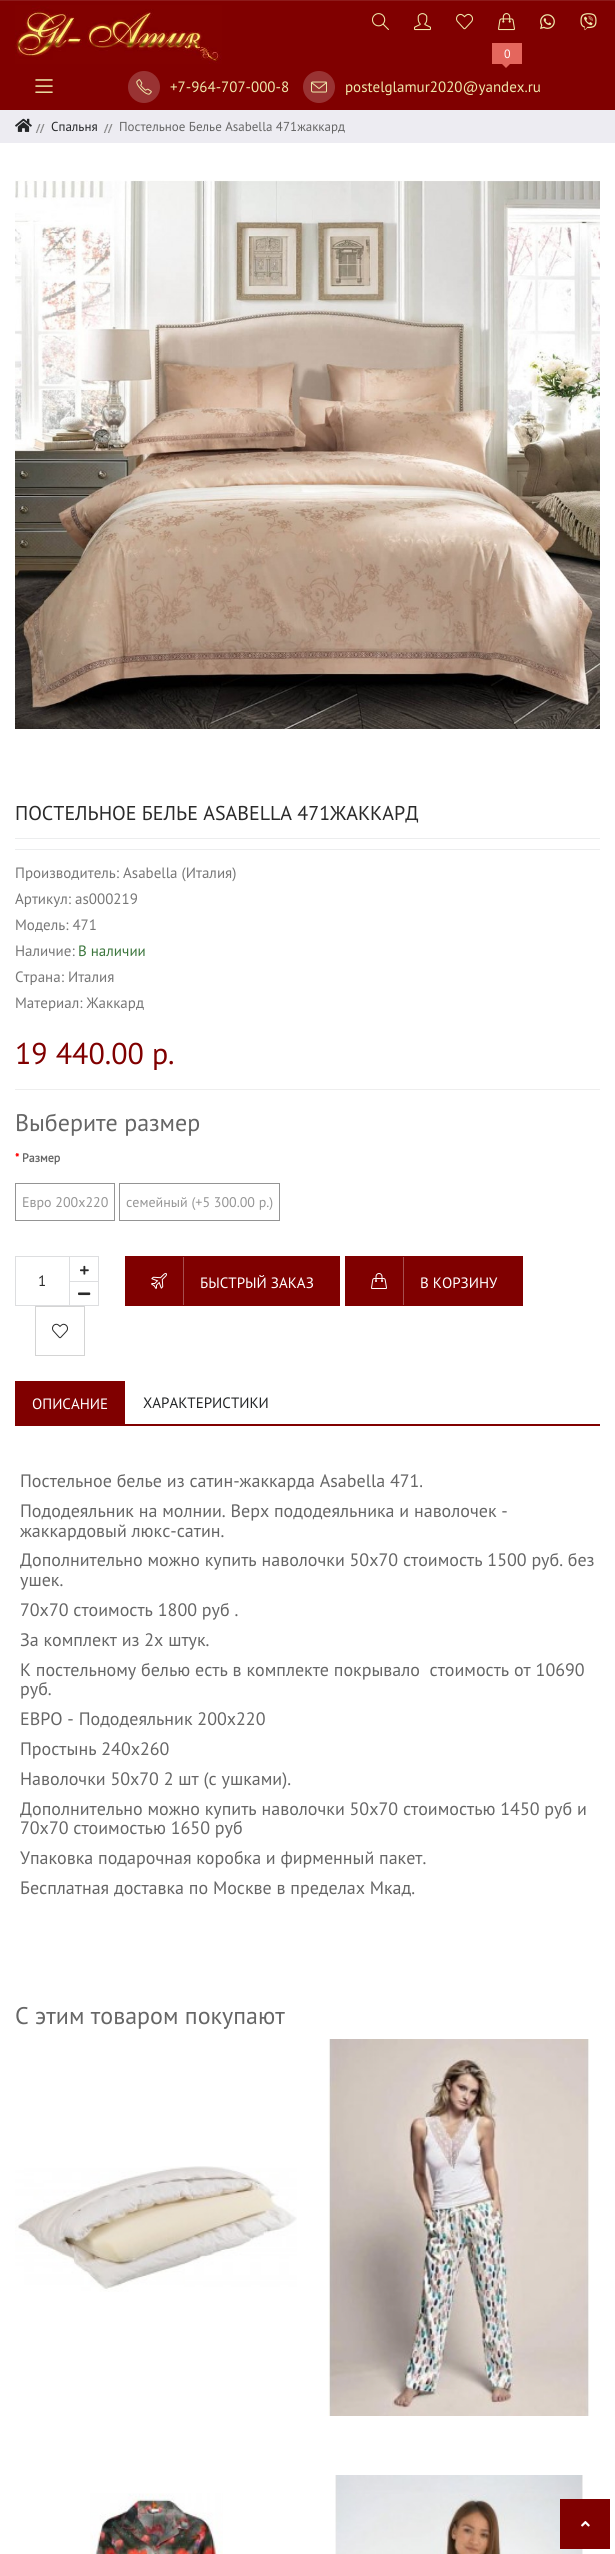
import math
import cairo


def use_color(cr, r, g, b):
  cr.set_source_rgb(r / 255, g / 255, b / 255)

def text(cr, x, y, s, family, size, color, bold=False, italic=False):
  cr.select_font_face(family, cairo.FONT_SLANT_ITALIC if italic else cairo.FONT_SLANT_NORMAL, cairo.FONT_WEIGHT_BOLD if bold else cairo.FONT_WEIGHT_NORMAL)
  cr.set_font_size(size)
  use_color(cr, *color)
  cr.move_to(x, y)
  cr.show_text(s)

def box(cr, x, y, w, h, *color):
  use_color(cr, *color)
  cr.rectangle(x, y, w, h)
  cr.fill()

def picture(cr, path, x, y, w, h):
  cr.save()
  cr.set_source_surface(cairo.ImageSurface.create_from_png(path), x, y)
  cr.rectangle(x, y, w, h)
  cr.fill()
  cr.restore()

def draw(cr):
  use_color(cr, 255, 255, 255)
  cr.paint()
  box(cr, 0, 0, 615, 1, 141, 26, 26)
  box(cr, 0, 1, 615, 109, 128, 0, 0)
  picture(cr, "img_01.png", 35, 79, 18, 14)
  picture(cr, "img_02.png", 372, 13, 17, 17)
  picture(cr, "img_03.png", 414, 13, 17, 18)
  picture(cr, "img_04.png", 456, 13, 17, 17)
  picture(cr, "img_05.png", 540, 14, 15, 15)
  picture(cr, "img_06.png", 580, 13, 17, 18)
  picture(cr, "img_07.png", 498, 13, 17, 18)
  box(cr, 492, 43, 30, 21, 228, 102, 93)
  cr.new_path()
  cr.move_to(501, 63)
  cr.line_to(511, 63)
  cr.line_to(506, 68)
  cr.close_path()
  cr.fill()
  picture(cr, "img_08.png", 15, 5, 207, 59)
  use_color(cr, 153, 51, 51)
  cr.arc(144, 87, 16, 0, 2 * math.pi)
  cr.fill()
  picture(cr, "img_09.png", 136, 79, 16, 16)
  cr.arc(319, 87, 16, 0, 2 * math.pi)
  cr.fill()
  picture(cr, "img_10.png", 311, 81, 16, 12)
  box(cr, 0, 110, 615, 33, 237, 236, 242)
  picture(cr, "img_11.png", 15, 118, 17, 14)
  picture(cr, "img_12.png", 35, 124, 10, 9)
  picture(cr, "img_12.png", 103, 124, 10, 9)
  picture(cr, "img_13.png", 15, 180, 585, 550)
  box(cr, 15, 838, 585, 1, 236, 237, 238)
  box(cr, 15, 849, 585, 1, 236, 237, 238)
  box(cr, 15, 1089, 585, 1, 238, 238, 238)
  cr.rectangle(15.5, 1183.5, 99, 37)
  use_color(cr, 148, 148, 148)
  cr.set_line_width(1)
  cr.stroke()
  cr.rectangle(119.5, 1183.5, 160, 37)
  cr.stroke()
  cr.rectangle(15.5, 1256.5, 54, 49)
  use_color(cr, 221, 222, 224)
  cr.stroke()
  box(cr, 70, 1256, 29, 1, 221, 222, 224)
  box(cr, 98, 1256, 1, 25, 221, 222, 224)
  picture(cr, "img_14.png", 80, 1265, 9, 10)
  box(cr, 70, 1281, 29, 1, 221, 222, 224)
  box(cr, 98, 1281, 1, 25, 221, 222, 224)
  box(cr, 70, 1305, 29, 1, 221, 222, 224)
  picture(cr, "img_15.png", 78, 1292, 13, 4)
  box(cr, 125, 1256, 215, 50, 128, 0, 0)
  box(cr, 183, 1257, 1, 48, 166, 78, 78)
  picture(cr, "img_16.png", 151, 1273, 16, 16)
  box(cr, 345, 1256, 178, 50, 128, 0, 0)
  box(cr, 403, 1257, 1, 48, 166, 78, 78)
  picture(cr, "img_17.png", 371, 1273, 16, 16)
  cr.rectangle(35.5, 1306.5, 49, 49)
  use_color(cr, 212, 212, 212)
  cr.stroke()
  picture(cr, "img_18.png", 52, 1323, 16, 16)
  box(cr, 125, 1424, 475, 2, 128, 0, 0)
  box(cr, 15, 1381, 110, 45, 128, 0, 0)
  picture(cr, "img_19.png", 15, 2166, 282, 126)
  picture(cr, "img_20.png", 328, 2039, 262, 377)
  picture(cr, "img_21.png", 90, 2493, 133, 61)
  picture(cr, "img_22.png", 335, 2475, 248, 79)
  box(cr, 560, 2499, 50, 50, 128, 0, 0)
  picture(cr, "img_23.png", 581, 2521, 9, 6)
  text(cr, 504, 58, "0", "PT Sans", 12, (255, 255, 255))
  text(cr, 170, 92, "+7-964-707-000-8", "PT Sans", 15, (238, 232, 170))
  text(cr, 345, 92, "postelglamur2020@yandex.ru", "PT Sans", 15, (238, 232, 170))
  text(cr, 51, 131, "Спальня", "PT Sans", 13, (36, 38, 40))
  text(cr, 119, 131, "Постельное Белье Asabella 471жаккард", "PT Sans", 13, (102, 102, 102))
  text(cr, 15, 820, "ПОСТЕЛЬНОЕ БЕЛЬЕ ASABELLA 471ЖАККАРД", "PT Sans", 20, (42, 42, 42))
  text(cr, 15, 878, "Производитель: Asabella (Италия)", "PT Sans", 15, (118, 118, 118))
  text(cr, 15, 904, "Артикул: as000219", "PT Sans", 15, (118, 118, 118))
  text(cr, 15, 930, "Модель: 471", "PT Sans", 15, (118, 118, 118))
  text(cr, 15, 956, "Наличие:", "PT Sans", 15, (118, 118, 118))
  text(cr, 78, 956, "В наличии", "PT Sans", 15, (60, 118, 61))
  text(cr, 15, 982, "Страна: Италия", "PT Sans", 15, (118, 118, 118))
  text(cr, 15, 1008, "Материал: Жаккард", "PT Sans", 15, (118, 118, 118))
  text(cr, 15, 1064, "19 440.00 р.", "PT Sans", 30, (128, 0, 0))
  text(cr, 15, 1131, "Выберите размер", "PT Sans", 24, (102, 102, 102))
  text(cr, 15, 1162, "*", "PT Sans", 12, (255, 0, 0), bold=True)
  text(cr, 22, 1162, "Размер", "PT Sans", 12, (102, 102, 102), bold=True)
  text(cr, 22, 1207, "Евро 200х220", "PT Sans", 14, (149, 149, 149))
  text(cr, 126, 1207, "семейный (+5 300.00 р.)", "PT Sans", 14, (149, 149, 149))
  text(cr, 38, 1286, "1", "PT Sans", 15, (42, 42, 42))
  text(cr, 200, 1288, "БЫСТРЫЙ ЗАКАЗ", "PT Sans", 15, (255, 255, 255))
  text(cr, 420, 1288, "В КОРЗИНУ", "PT Sans", 15, (255, 255, 255))
  text(cr, 32, 1409, "ОПИСАНИЕ", "PT Sans", 15, (255, 255, 255))
  text(cr, 143, 1408, "ХАРАКТЕРИСТИКИ", "PT Sans", 15, (36, 38, 40))
  text(cr, 20, 1487, "Постельное белье из сатин-жаккарда Asabella 471.", "PT Sans", 18, (102, 102, 102))
  text(cr, 20, 1517, "Пододеяльник на молнии. Верх пододеяльника и наволочек -", "PT Sans", 18, (102, 102, 102))
  text(cr, 20, 1537, "жаккардовый люкс-сатин.", "PT Sans", 18, (102, 102, 102))
  text(cr, 20, 1566, "Дополнительно можно купить наволочки 50х70 стоимость 1500 руб. без", "PT Sans", 18, (102, 102, 102))
  text(cr, 20, 1586, "ушек.", "PT Sans", 18, (102, 102, 102))
  text(cr, 20, 1616, "70х70 стоимость 1800 руб .", "PT Sans", 18, (102, 102, 102))
  text(cr, 20, 1646, "За комплект из 2х штук.", "PT Sans", 18, (102, 102, 102))
  text(cr, 20, 1676, "К постельному белью есть в комплекте покрывало  стоимость от 10690", "PT Sans", 18, (102, 102, 102))
  text(cr, 20, 1695, "руб.", "PT Sans", 18, (102, 102, 102))
  text(cr, 20, 1725, "ЕВРО - Пододеяльник 200х220", "PT Sans", 18, (102, 102, 102))
  text(cr, 20, 1755, "Простынь 240х260", "PT Sans", 18, (102, 102, 102))
  text(cr, 20, 1785, "Наволочки 50х70 2 шт (с ушками).", "PT Sans", 18, (102, 102, 102))
  text(cr, 20, 1815, "Дополнительно можно купить наволочки 50х70 стоимостью 1450 руб и", "PT Sans", 18, (102, 102, 102))
  text(cr, 20, 1834, "70х70 стоимостью 1650 руб", "PT Sans", 18, (102, 102, 102))
  text(cr, 20, 1864, "Упаковка подарочная коробка и фирменный пакет.", "PT Sans", 18, (102, 102, 102))
  text(cr, 20, 1894, "Бесплатная доставка по Москве в пределах Мкад.", "PT Sans", 18, (102, 102, 102))
  text(cr, 15, 2024, "С этим товаром покупают", "PT Sans", 24, (102, 102, 102))


surface = cairo.ImageSurface(cairo.FORMAT_RGB24, 615, 2554)
cr = cairo.Context(surface)
options = cairo.FontOptions()
options.set_hint_metrics(cairo.HINT_METRICS_OFF)
options.set_hint_style(cairo.HINT_STYLE_NONE)
cr.set_font_options(options)
cr.set_miter_limit(4)
draw(cr)
surface.write_to_png("out.png")
